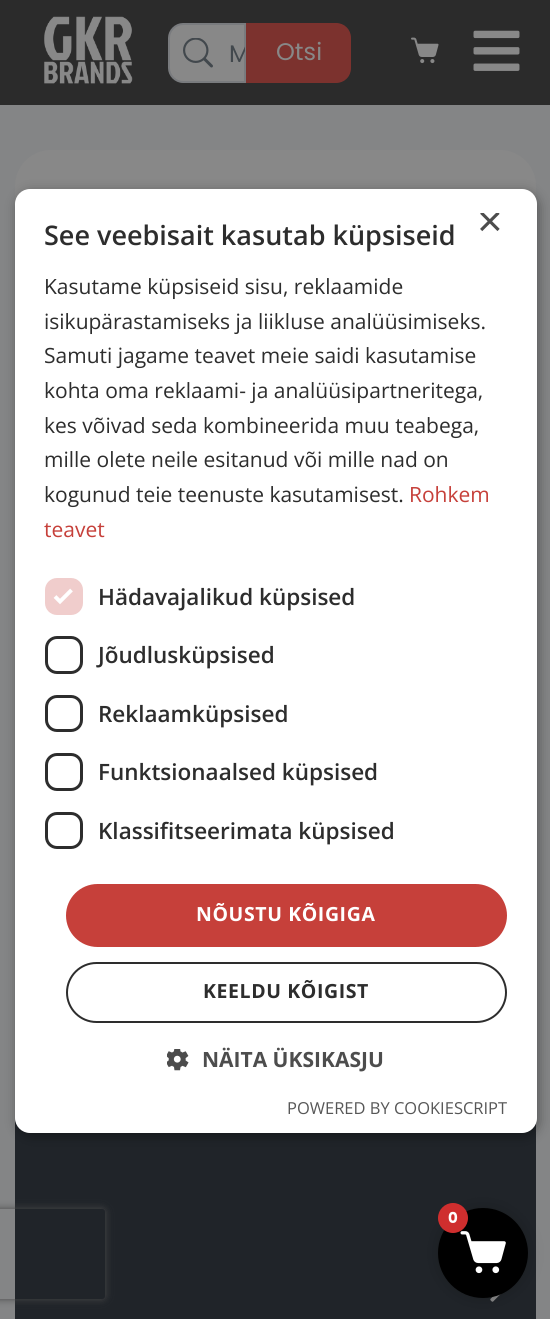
import math
import cairo


def use_color(cr, r, g, b):
  cr.set_source_rgb(r / 255, g / 255, b / 255)

def text(cr, x, y, s, family, size, color, bold=False, italic=False):
  cr.select_font_face(family, cairo.FONT_SLANT_ITALIC if italic else cairo.FONT_SLANT_NORMAL, cairo.FONT_WEIGHT_BOLD if bold else cairo.FONT_WEIGHT_NORMAL)
  cr.set_font_size(size)
  use_color(cr, *color)
  cr.move_to(x, y)
  cr.show_text(s)

def spaced_text(cr, x, y, s, letter, word):
  cr.move_to(x, y)
  for ch in s:
    cr.show_text(ch)
    cr.rel_move_to(letter + word * (ch == ' '), 0)

def box(cr, x, y, w, h, *color):
  use_color(cr, *color)
  cr.rectangle(x, y, w, h)
  cr.fill()

def round_rect(cr, x, y, w, h, r):
  cr.new_sub_path()
  for i, (u, v) in enumerate([(x + w - r, y + h - r), (x + r, y + h - r), (x + r, y + r), (x + w - r, y + r)]):
    cr.arc(u, v, r, i * math.pi / 2, (i + 1) * math.pi / 2)
  cr.close_path()

def shadow(cr, x, y, w, h, r, blur, alpha):
  cr.push_group_with_content(cairo.CONTENT_ALPHA)
  cr.set_operator(cairo.OPERATOR_SOURCE)
  for i in range(15, -16, -2):
    e = blur * i / 6
    if min(w, h) + 2 * e > 0:
      cr.set_source_rgba(0, 0, 0, alpha * math.erfc((i - 1) / 8.5) / 2)
      round_rect(cr, x - e, y - e, w + 2 * e, h + 2 * e, max(0, min(r + e + blur * .6, min(w, h) / 2 + e)))
      cr.fill()
  cr.mask(cr.pop_group())

def picture(cr, path, x, y, w, h):
  cr.save()
  cr.set_source_surface(cairo.ImageSurface.create_from_png(path), x, y)
  cr.rectangle(x, y, w, h)
  cr.fill()
  cr.restore()

def draw(cr):
  use_color(cr, 132, 133, 134)
  cr.paint()
  box(cr, 0, 0, 550, 105, 43, 43, 43)
  picture(cr, "img_01.png", 44, 16, 89, 68)
  use_color(cr, 136, 136, 136)
  cr.new_path()
  cr.move_to(183, 24)
  cr.line_to(245, 24)
  cr.line_to(245, 82)
  cr.line_to(183, 82)
  cr.curve_to(175.5, 82, 169, 75.5, 169, 68)
  cr.line_to(169, 38)
  cr.curve_to(169, 30.5, 175.5, 24, 183, 24)
  cr.close_path()
  cr.fill_preserve()
  use_color(cr, 121, 123, 126)
  cr.stroke()
  picture(cr, "img_02.png", 183, 38, 30, 30)
  use_color(cr, 124, 50, 46)
  cr.new_path()
  cr.move_to(246, 23)
  cr.line_to(336, 23)
  cr.curve_to(344.5, 23, 351, 29.5, 351, 38)
  cr.line_to(351, 68)
  cr.curve_to(351, 76.5, 344.5, 83, 336, 83)
  cr.line_to(246, 83)
  cr.close_path()
  cr.fill()
  picture(cr, "img_03.png", 411, 37, 28, 27)
  picture(cr, "img_04.png", 473, 30, 47, 41)
  use_color(cr, 136, 136, 136)
  round_rect(cr, 15, 150, 521, 849, 36)
  cr.fill()
  box(cr, 15, 1118, 521, 201, 32, 36, 41)
  picture(cr, "img_05.png", 490, 1293, 12, 9)
  use_color(cr, 0, 0, 0)
  shadow(cr, 17, 192, 522, 944, 15, 6, 0.35)
  use_color(cr, 255, 255, 255)
  round_rect(cr, 15, 189, 522, 944, 15)
  cr.fill()
  use_color(cr, 240, 205, 204)
  round_rect(cr, 45, 578, 38, 37, 12)
  cr.fill()
  cr.new_path()
  cr.move_to(55, 596.5)
  cr.line_to(60, 601.5)
  cr.line_to(71.5, 590)
  use_color(cr, 255, 255, 255)
  cr.set_line_width(3.9)
  cr.stroke()
  round_rect(cr, 46.5, 637.5, 35, 35, 10.5)
  use_color(cr, 45, 45, 45)
  cr.set_line_width(3)
  cr.stroke()
  round_rect(cr, 46.5, 696.5, 35, 34, 10.5)
  cr.stroke()
  round_rect(cr, 46.5, 754.5, 35, 35, 10.5)
  cr.stroke()
  round_rect(cr, 46.5, 813.5, 35, 34, 10.5)
  cr.stroke()
  use_color(cr, 198, 64, 58)
  round_rect(cr, 66, 884, 441, 63, 31.5)
  cr.fill()
  round_rect(cr, 67, 963, 439, 59, 29.5)
  use_color(cr, 45, 45, 45)
  cr.set_line_width(2)
  cr.stroke()
  picture(cr, "img_06.png", 167, 1049, 22, 22)
  cr.save()
  cr.set_fill_rule(cairo.FILL_RULE_EVEN_ODD)
  cr.new_path()
  cr.move_to(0, 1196)
  cr.line_to(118, 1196)
  cr.line_to(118, 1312)
  cr.line_to(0, 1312)
  cr.close_path()
  cr.move_to(-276, 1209)
  cr.line_to(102, 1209)
  cr.curve_to(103.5, 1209, 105, 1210.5, 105, 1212)
  cr.line_to(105, 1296)
  cr.curve_to(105, 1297.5, 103.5, 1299, 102, 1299)
  cr.line_to(-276, 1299)
  cr.curve_to(-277.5, 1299, -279, 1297.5, -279, 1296)
  cr.line_to(-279, 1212)
  cr.curve_to(-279, 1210.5, -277.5, 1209, -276, 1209)
  cr.close_path()
  cr.clip()
  use_color(cr, 73, 73, 73)
  shadow(cr, -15, 1209, 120, 90, 3, 4, 1)
  cr.restore()
  use_color(cr, 0, 0, 0)
  shadow(cr, 438, 1208, 90, 90, 45, 7.5, 0.19)
  use_color(cr, 0, 0, 0)
  cr.arc(483, 1253, 45, 0, 2 * math.pi)
  cr.fill()
  picture(cr, "img_07.png", 460, 1231, 46, 43)
  use_color(cr, 207, 46, 46)
  cr.arc(453, 1218, 15, 0, 2 * math.pi)
  cr.fill()
  cr.save()
  cr.new_path()
  cr.move_to(184, 24)
  cr.line_to(245, 24)
  cr.line_to(245, 81)
  cr.line_to(184, 81)
  cr.curve_to(176.5, 81, 170, 74.5, 170, 67)
  cr.line_to(170, 38)
  cr.curve_to(170, 30.5, 176.5, 24, 184, 24)
  cr.close_path()
  cr.clip()
  text(cr, 229, 62, "M", "Poppins", 24, (66, 72, 77))
  cr.restore()
  text(cr, 276, 60, "Otsi", "Poppins", 24, (136, 136, 136))
  text(cr, 44, 245, "See veebisait kasutab küpsiseid", "Open Sans SemiBold", 27, (45, 45, 45))
  cr.save()
  cr.rectangle(477, 213, 23, 23)
  cr.clip()
  text(cr, 477, 236, "×", "Liberation Sans", 44, (77, 77, 77))
  cr.restore()
  text(cr, 44, 294, "Kasutame küpsiseid sisu, reklaamide", "Open Sans", 21, (45, 45, 45))
  text(cr, 44, 329, "isikupärastamiseks ja liikluse analüüsimiseks.", "Open Sans", 21, (45, 45, 45))
  text(cr, 44, 363, "Samuti jagame teavet meie saidi kasutamise", "Open Sans", 21, (45, 45, 45))
  text(cr, 44, 398, "kohta oma reklaami- ja analüüsipartneritega,", "Open Sans", 21, (45, 45, 45))
  text(cr, 44, 433, "kes võivad seda kombineerida muu teabega,", "Open Sans", 21, (45, 45, 45))
  text(cr, 44, 467, "mille olete neile esitanud või mille nad on", "Open Sans", 21, (45, 45, 45))
  text(cr, 44, 502, "kogunud teie teenuste kasutamisest.", "Open Sans", 21, (45, 45, 45))
  text(cr, 409, 502, "Rohkem", "Open Sans", 21, (198, 64, 58))
  text(cr, 44, 537, "teavet", "Open Sans", 21, (198, 64, 58))
  text(cr, 98, 605, "Hädavajalikud küpsised", "Open Sans SemiBold", 22.5, (45, 45, 45))
  text(cr, 98, 663, "Jõudlusküpsised", "Open Sans SemiBold", 22.5, (45, 45, 45))
  text(cr, 98, 722, "Reklaamküpsised", "Open Sans SemiBold", 22.5, (45, 45, 45))
  text(cr, 98, 780, "Funktsionaalsed küpsised", "Open Sans SemiBold", 22.5, (45, 45, 45))
  text(cr, 98, 839, "Klassifitseerimata küpsised", "Open Sans SemiBold", 22.5, (45, 45, 45))
  cr.select_font_face("Open Sans", cairo.FONT_SLANT_NORMAL, cairo.FONT_WEIGHT_BOLD)
  cr.set_font_size(19.5)
  use_color(cr, 255, 255, 255)
  spaced_text(cr, 196, 921, "NÕUSTU KÕIGIGA", 0.6, 0)
  use_color(cr, 45, 45, 45)
  spaced_text(cr, 203, 998, "KEELDU KÕIGIST", 0.6, 0)
  text(cr, 202, 1067, "NÄITA ÜKSIKASJU", "Open Sans", 21, (77, 77, 77), bold=True)
  text(cr, 287, 1114, "POWERED BY COOKIESCRIPT", "Open Sans", 16.5, (87, 87, 87))
  text(cr, 448, 1223, "0", "Poppins", 15, (255, 255, 255), bold=True)


surface = cairo.ImageSurface(cairo.FORMAT_RGB24, 550, 1319)
cr = cairo.Context(surface)
options = cairo.FontOptions()
options.set_hint_metrics(cairo.HINT_METRICS_OFF)
options.set_hint_style(cairo.HINT_STYLE_NONE)
cr.set_font_options(options)
cr.set_miter_limit(4)
draw(cr)
surface.write_to_png("out.png")
